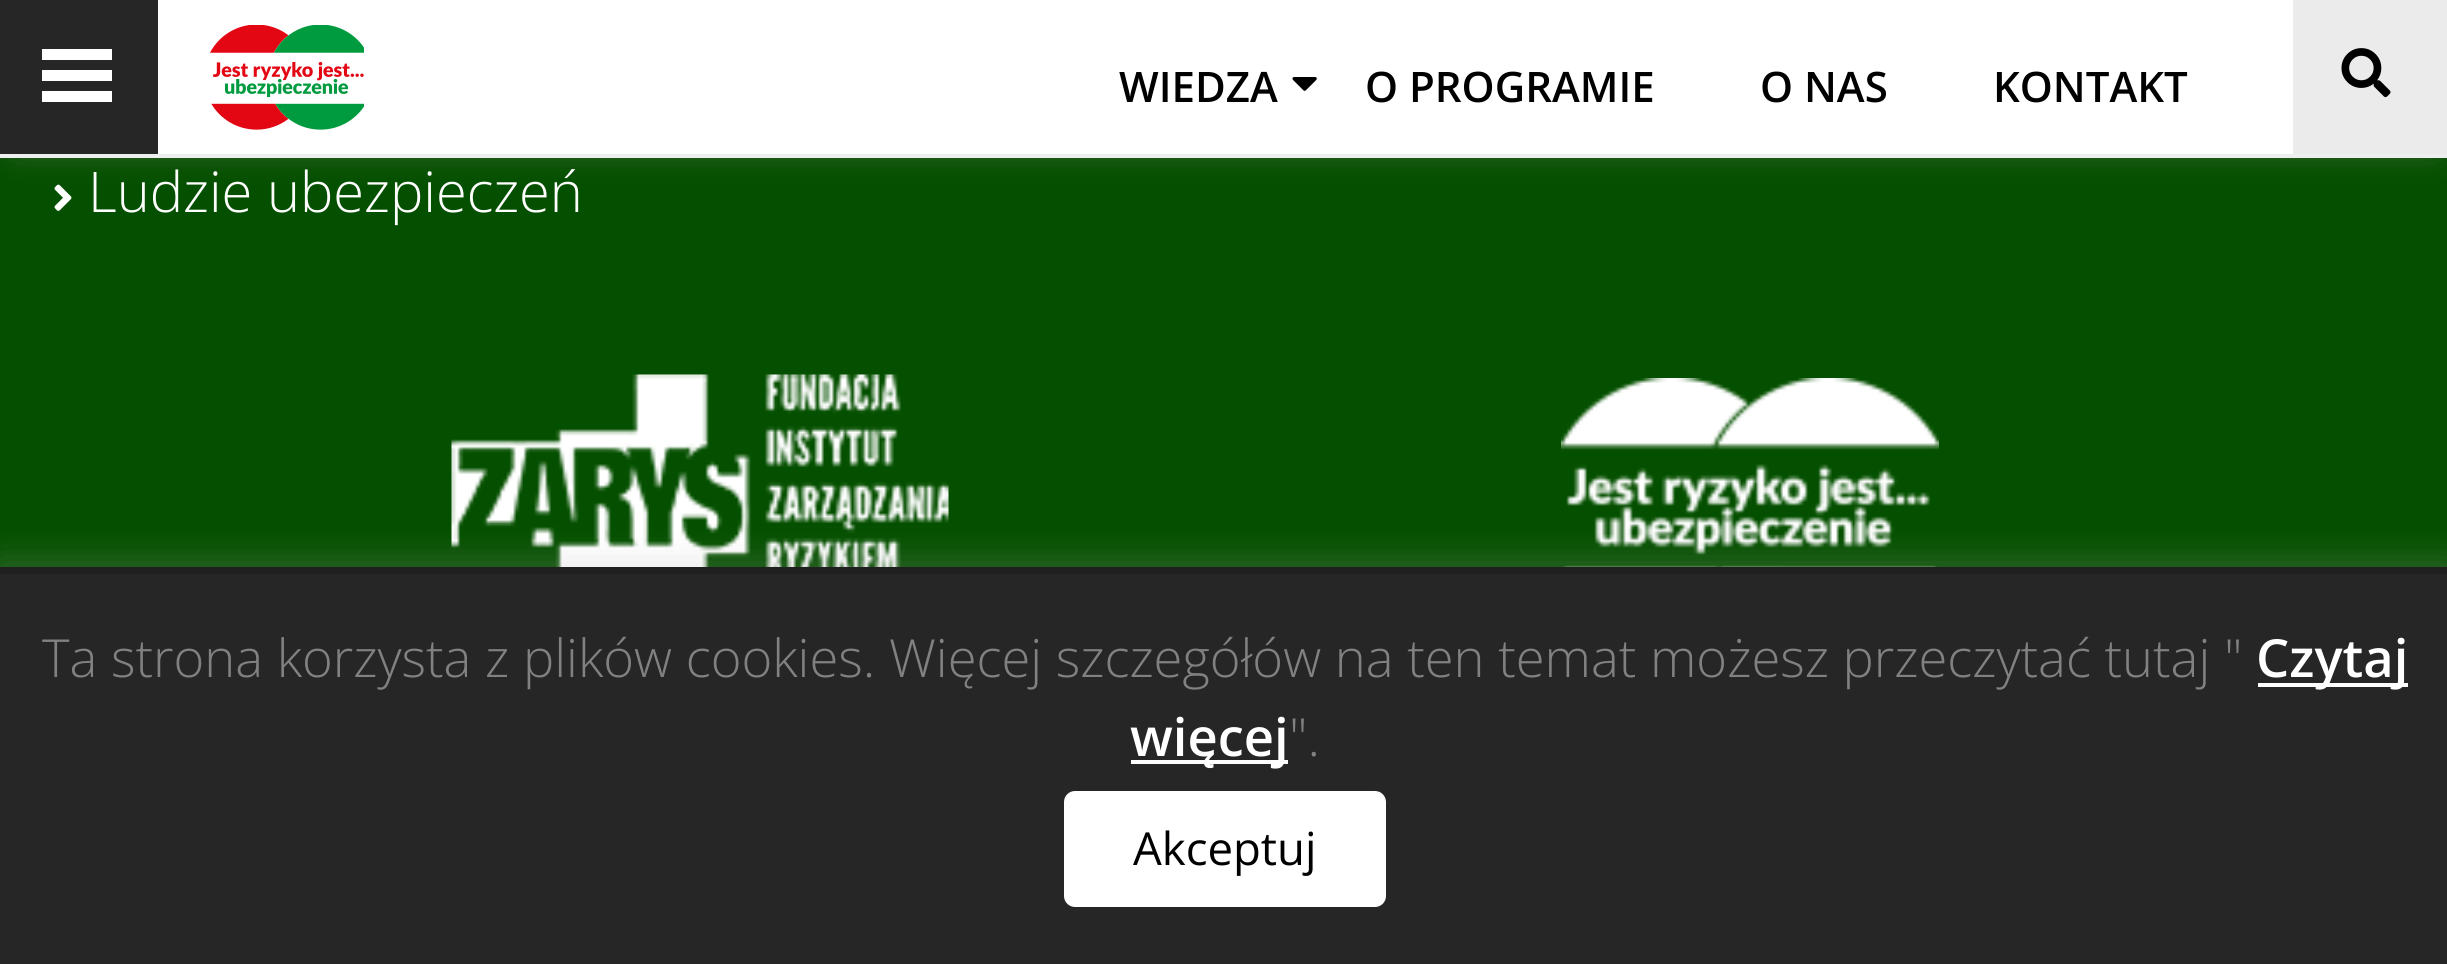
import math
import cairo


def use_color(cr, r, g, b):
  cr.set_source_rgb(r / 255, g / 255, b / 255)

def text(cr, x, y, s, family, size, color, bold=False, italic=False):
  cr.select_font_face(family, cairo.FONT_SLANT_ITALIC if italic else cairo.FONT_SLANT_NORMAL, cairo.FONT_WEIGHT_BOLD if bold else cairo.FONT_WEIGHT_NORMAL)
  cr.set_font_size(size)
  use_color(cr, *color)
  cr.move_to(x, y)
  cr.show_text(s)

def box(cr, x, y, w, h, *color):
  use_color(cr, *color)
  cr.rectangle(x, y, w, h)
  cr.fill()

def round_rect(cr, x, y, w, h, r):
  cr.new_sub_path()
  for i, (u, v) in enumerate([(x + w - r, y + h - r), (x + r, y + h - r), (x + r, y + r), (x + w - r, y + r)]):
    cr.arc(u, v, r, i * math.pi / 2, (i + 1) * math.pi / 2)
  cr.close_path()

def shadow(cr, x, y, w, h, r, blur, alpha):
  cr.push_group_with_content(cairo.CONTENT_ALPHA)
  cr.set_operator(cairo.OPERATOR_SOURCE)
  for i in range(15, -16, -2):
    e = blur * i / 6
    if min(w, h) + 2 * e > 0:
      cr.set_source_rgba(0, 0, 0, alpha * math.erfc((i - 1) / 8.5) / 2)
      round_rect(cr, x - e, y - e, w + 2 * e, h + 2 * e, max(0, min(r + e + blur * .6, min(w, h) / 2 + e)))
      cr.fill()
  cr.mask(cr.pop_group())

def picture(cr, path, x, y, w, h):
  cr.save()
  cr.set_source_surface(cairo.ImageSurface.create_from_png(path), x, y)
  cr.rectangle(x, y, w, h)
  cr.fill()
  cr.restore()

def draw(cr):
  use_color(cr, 5, 80, 0)
  cr.paint()
  picture(cr, "img_04.png", 54, 184, 18, 27)
  use_color(cr, 136, 136, 136)
  shadow(cr, 18, 18, 2415, 122, 0, 17.5, 1)
  box(cr, 0, 0, 158, 154, 38, 38, 38)
  box(cr, 42, 49, 70, 11, 255, 255, 255)
  box(cr, 42, 70, 70, 11, 255, 255, 255)
  box(cr, 42, 91, 70, 11, 255, 255, 255)
  box(cr, 158, 0, 2135, 154, 255, 255, 255)
  box(cr, 0, 154, 2447, 4, 238, 238, 238)
  picture(cr, "img_01.png", 210, 25, 154, 105)
  picture(cr, "img_02.png", 1292, 77, 25, 14)
  box(cr, 2293, 0, 154, 154, 235, 235, 235)
  picture(cr, "img_03.png", 2341, 48, 50, 50)
  picture(cr, "img_05.png", 451, 374, 498, 193)
  picture(cr, "img_06.png", 1561, 378, 378, 189)
  use_color(cr, 172, 171, 171)
  shadow(cr, 0, 564, 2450, 399, 0, 17.5, 0.3)
  box(cr, 0, 574, 2447, 390, 38, 38, 38)
  box(cr, 0, 567, 2447, 7, 31, 31, 31)
  box(cr, 2258, 683, 150, 4, 255, 255, 255)
  box(cr, 1131, 760, 157, 4, 255, 255, 255)
  round_rect(cr, 1064, 791, 322, 116, 11)
  cr.fill()
  text(cr, 1119, 102, "WIEDZA", "Open Sans SemiBold", 42, (0, 0, 0))
  text(cr, 1365, 102, "O PROGRAMIE", "Open Sans SemiBold", 42, (0, 0, 0))
  text(cr, 1760, 102, "O NAS", "Open Sans SemiBold", 42, (0, 0, 0))
  text(cr, 1993, 102, "KONTAKT", "Open Sans SemiBold", 42, (0, 0, 0))
  text(cr, 88, 212, "Ludzie ubezpieczeń", "Open Sans Light", 56, (255, 255, 255))
  text(cr, 42, 677, "Ta strona korzysta z plików cookies. Więcej szczegółów na ten temat możesz przeczytać tutaj \"", "Open Sans Light", 52.5, (129, 129, 129))
  text(cr, 2256, 677, "Czytaj", "Open Sans SemiBold", 52.5, (255, 255, 255))
  text(cr, 1130, 756, "więcej", "Open Sans SemiBold", 52.5, (255, 255, 255))
  text(cr, 1289, 756, "\".", "Open Sans Light", 52.5, (129, 129, 129))
  text(cr, 1133, 865, "Akceptuj", "Open Sans", 45.5, (0, 0, 0))


surface = cairo.ImageSurface(cairo.FORMAT_RGB24, 2447, 964)
cr = cairo.Context(surface)
options = cairo.FontOptions()
options.set_hint_metrics(cairo.HINT_METRICS_OFF)
options.set_hint_style(cairo.HINT_STYLE_NONE)
cr.set_font_options(options)
cr.set_miter_limit(4)
draw(cr)
surface.write_to_png("out.png")
